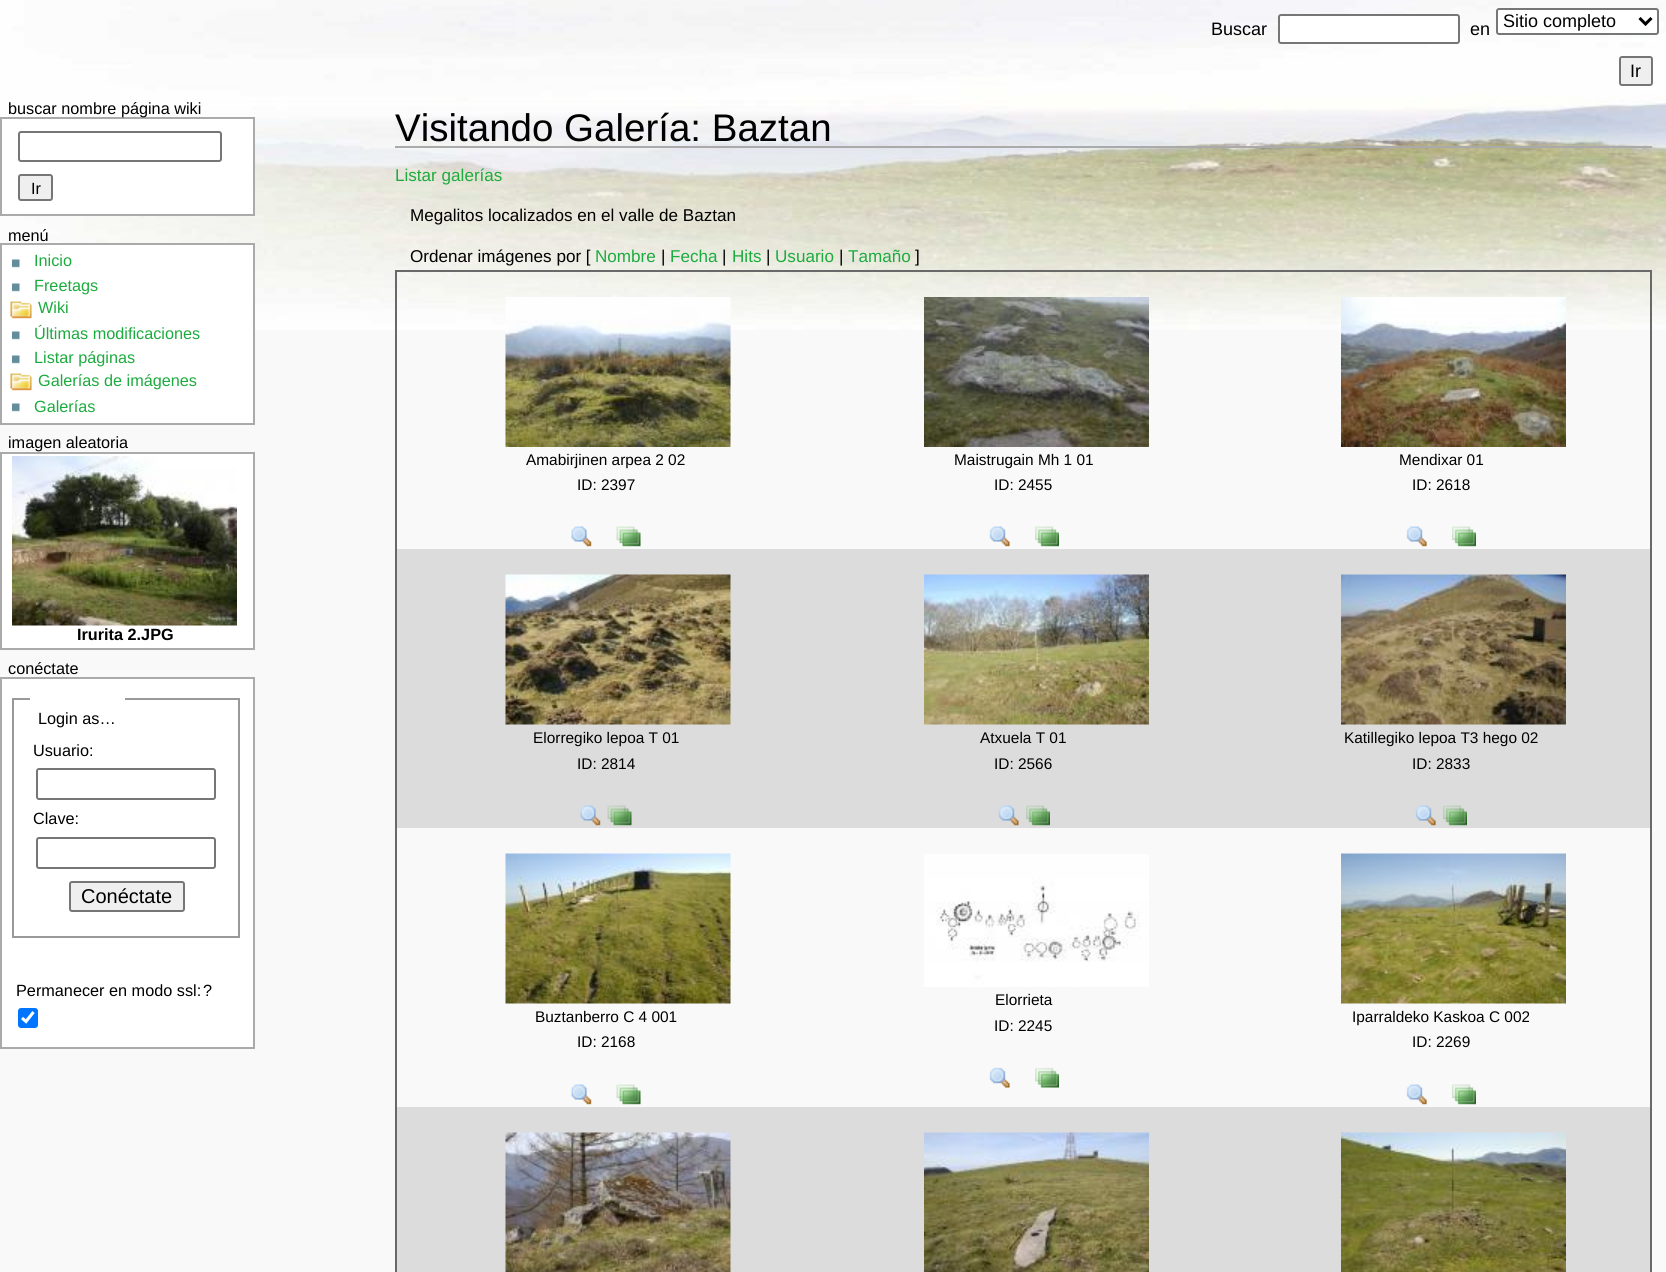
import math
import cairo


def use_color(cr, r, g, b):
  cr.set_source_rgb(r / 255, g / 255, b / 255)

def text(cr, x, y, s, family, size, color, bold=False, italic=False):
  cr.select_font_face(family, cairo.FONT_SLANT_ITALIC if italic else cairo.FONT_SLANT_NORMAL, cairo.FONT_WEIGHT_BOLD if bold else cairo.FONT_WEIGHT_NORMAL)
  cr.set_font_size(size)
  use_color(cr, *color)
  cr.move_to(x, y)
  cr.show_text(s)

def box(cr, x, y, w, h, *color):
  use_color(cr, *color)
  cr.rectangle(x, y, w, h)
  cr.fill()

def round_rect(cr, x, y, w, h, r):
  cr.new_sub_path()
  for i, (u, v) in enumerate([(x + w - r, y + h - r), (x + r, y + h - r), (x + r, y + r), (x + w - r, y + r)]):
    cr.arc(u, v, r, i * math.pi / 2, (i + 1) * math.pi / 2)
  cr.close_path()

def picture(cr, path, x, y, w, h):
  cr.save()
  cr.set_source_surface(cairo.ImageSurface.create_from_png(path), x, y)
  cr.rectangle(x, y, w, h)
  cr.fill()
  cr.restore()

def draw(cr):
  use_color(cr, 249, 249, 249)
  cr.paint()
  picture(cr, "img_01.png", 0, 0, 1666, 330)
  use_color(cr, 255, 255, 255)
  round_rect(cr, 1279, 15, 180, 28, 2)
  cr.fill_preserve()
  use_color(cr, 118, 118, 118)
  cr.stroke()
  use_color(cr, 255, 255, 255)
  round_rect(cr, 1497, 9, 161, 25, 2)
  cr.fill_preserve()
  use_color(cr, 118, 118, 118)
  cr.stroke()
  cr.new_path()
  cr.move_to(1639.5, 18)
  cr.line_to(1645.5, 24)
  cr.line_to(1651.5, 18)
  use_color(cr, 0, 0, 0)
  cr.set_line_width(3)
  cr.stroke()
  use_color(cr, 239, 239, 239)
  round_rect(cr, 1620, 57, 32, 28, 2)
  cr.fill_preserve()
  use_color(cr, 118, 118, 118)
  cr.set_line_width(2)
  cr.stroke()
  use_color(cr, 255, 255, 255)
  cr.rectangle(1, 118, 253, 97)
  cr.fill_preserve()
  use_color(cr, 170, 170, 170)
  cr.stroke()
  round_rect(cr, 19, 132, 202, 29, 2)
  use_color(cr, 118, 118, 118)
  cr.stroke()
  use_color(cr, 239, 239, 239)
  round_rect(cr, 19, 175, 33, 25, 2)
  cr.fill_preserve()
  use_color(cr, 118, 118, 118)
  cr.stroke()
  use_color(cr, 255, 255, 255)
  cr.rectangle(1, 244, 253, 180)
  cr.fill_preserve()
  use_color(cr, 170, 170, 170)
  cr.stroke()
  picture(cr, "img_02.png", 12, 259, 8, 9)
  picture(cr, "img_02.png", 12, 283, 8, 9)
  picture(cr, "img_03.png", 10, 301, 22, 18)
  picture(cr, "img_02.png", 12, 331, 8, 9)
  picture(cr, "img_02.png", 12, 355, 8, 9)
  picture(cr, "img_03.png", 10, 373, 22, 18)
  picture(cr, "img_02.png", 12, 403, 8, 9)
  use_color(cr, 255, 255, 255)
  cr.rectangle(1, 453, 253, 196)
  cr.fill_preserve()
  use_color(cr, 170, 170, 170)
  cr.stroke()
  picture(cr, "img_04.png", 12, 456, 225, 170)
  use_color(cr, 255, 255, 255)
  cr.rectangle(1, 678, 253, 370)
  cr.fill_preserve()
  use_color(cr, 170, 170, 170)
  cr.stroke()
  cr.rectangle(13, 699, 226, 238)
  use_color(cr, 153, 153, 153)
  cr.stroke()
  box(cr, 30, 698, 95, 2, 255, 255, 255)
  round_rect(cr, 37, 769, 178, 30, 2)
  use_color(cr, 118, 118, 118)
  cr.stroke()
  round_rect(cr, 37, 838, 178, 30, 2)
  cr.stroke()
  use_color(cr, 239, 239, 239)
  round_rect(cr, 70, 882, 114, 29, 2)
  cr.fill_preserve()
  use_color(cr, 118, 118, 118)
  cr.stroke()
  use_color(cr, 0, 117, 255)
  round_rect(cr, 18, 1008, 20, 20, 3)
  cr.fill()
  cr.new_path()
  cr.move_to(22, 1018)
  cr.line_to(26, 1021.5)
  cr.line_to(33.5, 1012)
  use_color(cr, 255, 255, 255)
  cr.set_line_width(3.1)
  cr.stroke()
  box(cr, 395, 146, 1257, 2, 170, 170, 170)
  box(cr, 395, 270, 1257, 2, 105, 105, 105)
  box(cr, 1650, 270, 2, 1002, 105, 105, 105)
  box(cr, 395, 270, 2, 1002, 105, 105, 105)
  picture(cr, "img_05.png", 505, 297, 226, 150)
  picture(cr, "img_06.png", 571, 526, 21, 21)
  picture(cr, "img_07.png", 616, 526, 25, 21)
  picture(cr, "img_08.png", 924, 297, 225, 150)
  picture(cr, "img_09.png", 989, 526, 21, 21)
  picture(cr, "img_10.png", 1035, 526, 24, 21)
  picture(cr, "img_11.png", 1341, 297, 225, 150)
  picture(cr, "img_12.png", 1406, 526, 21, 21)
  picture(cr, "img_13.png", 1452, 526, 24, 21)
  box(cr, 397, 549, 1253, 279, 220, 220, 220)
  picture(cr, "img_14.png", 505, 574, 226, 151)
  picture(cr, "img_15.png", 580, 805, 21, 21)
  picture(cr, "img_16.png", 607, 805, 25, 21)
  picture(cr, "img_17.png", 924, 574, 225, 151)
  picture(cr, "img_18.png", 998, 805, 21, 21)
  picture(cr, "img_19.png", 1026, 805, 24, 21)
  picture(cr, "img_20.png", 1341, 574, 225, 151)
  picture(cr, "img_21.png", 1415, 805, 21, 21)
  picture(cr, "img_22.png", 1443, 805, 24, 21)
  picture(cr, "img_23.png", 505, 853, 226, 151)
  picture(cr, "img_06.png", 571, 1084, 21, 21)
  picture(cr, "img_07.png", 616, 1084, 25, 21)
  picture(cr, "img_24.png", 924, 854, 225, 133)
  picture(cr, "img_25.png", 989, 1067, 21, 21)
  picture(cr, "img_26.png", 1035, 1067, 24, 21)
  picture(cr, "img_27.png", 1341, 853, 225, 151)
  picture(cr, "img_12.png", 1406, 1084, 21, 21)
  picture(cr, "img_13.png", 1452, 1084, 24, 21)
  box(cr, 397, 1107, 1253, 165, 220, 220, 220)
  picture(cr, "img_28.png", 505, 1132, 226, 140)
  picture(cr, "img_29.png", 924, 1132, 225, 140)
  picture(cr, "img_30.png", 1341, 1132, 225, 140)
  text(cr, 1211, 35, "Buscar", "Liberation Sans", 18, (0, 0, 0))
  text(cr, 1470, 35, "en", "Liberation Sans", 18, (0, 0, 0))
  text(cr, 1503, 27, "Sitio completo", "Liberation Sans", 18, (0, 0, 0))
  text(cr, 1630, 77, "Ir", "Liberation Sans", 18, (0, 0, 0))
  text(cr, 8, 114, "buscar nombre página wiki", "Liberation Sans", 16.25, (0, 0, 0))
  text(cr, 31, 194, "Ir", "Liberation Sans", 16.25, (0, 0, 0))
  text(cr, 8, 241, "menú", "Liberation Sans", 16.25, (0, 0, 0))
  text(cr, 34, 266, "Inicio", "Liberation Sans", 16.25, (28, 171, 62))
  text(cr, 34, 291, "Freetags", "Liberation Sans", 16.25, (28, 171, 62))
  text(cr, 38, 313, "Wiki", "Liberation Sans", 16.25, (28, 171, 62))
  text(cr, 34, 339, "Últimas modificaciones", "Liberation Sans", 16.25, (28, 171, 62))
  text(cr, 34, 363, "Listar páginas", "Liberation Sans", 16.25, (28, 171, 62))
  text(cr, 38, 386, "Galerías de imágenes", "Liberation Sans", 16.25, (28, 171, 62))
  text(cr, 34, 412, "Galerías", "Liberation Sans", 16.25, (28, 171, 62))
  text(cr, 8, 448, "imagen aleatoria", "Liberation Sans", 16.25, (0, 0, 0))
  text(cr, 77, 640, "Irurita 2.JPG", "Liberation Sans", 16.25, (0, 0, 0), bold=True)
  text(cr, 8, 674, "conéctate", "Liberation Sans", 16.25, (0, 0, 0))
  text(cr, 38, 724, "Login as…", "Liberation Sans", 16.25, (0, 0, 0))
  text(cr, 33, 756, "Usuario:", "Liberation Sans", 16.25, (0, 0, 0))
  text(cr, 33, 824, "Clave:", "Liberation Sans", 16.25, (0, 0, 0))
  text(cr, 81, 903, "Conéctate", "Liberation Sans", 20, (0, 0, 0))
  text(cr, 16, 996, "Permanecer en modo ssl:", "Liberation Sans", 16.25, (0, 0, 0))
  text(cr, 203, 996, "?", "Liberation Sans", 16.25, (0, 0, 0))
  text(cr, 395, 141, "Visitando Galería: Baztan", "Liberation Sans", 38.5, (0, 0, 0))
  text(cr, 395, 181, "Listar galerías", "Liberation Sans", 17.1, (28, 171, 62))
  text(cr, 410, 221, "Megalitos localizados en el valle de Baztan", "Liberation Sans", 17.1, (0, 0, 0))
  text(cr, 410, 262, "Ordenar imágenes por [", "Liberation Sans", 17.1, (0, 0, 0))
  text(cr, 595, 262, "Nombre", "Liberation Sans", 17.1, (28, 171, 62))
  text(cr, 661, 262, "|", "Liberation Sans", 17.1, (0, 0, 0))
  text(cr, 670, 262, "Fecha", "Liberation Sans", 17.1, (28, 171, 62))
  text(cr, 722, 262, "|", "Liberation Sans", 17.1, (0, 0, 0))
  text(cr, 732, 262, "Hits", "Liberation Sans", 17.1, (28, 171, 62))
  text(cr, 766, 262, "|", "Liberation Sans", 17.1, (0, 0, 0))
  text(cr, 775, 262, "Usuario", "Liberation Sans", 17.1, (28, 171, 62))
  text(cr, 839, 262, "|", "Liberation Sans", 17.1, (0, 0, 0))
  text(cr, 848, 262, "Tamaño", "Liberation Sans", 17.1, (28, 171, 62))
  text(cr, 915, 262, "]", "Liberation Sans", 17.1, (0, 0, 0))
  text(cr, 526, 465, "Amabirjinen arpea 2 02", "Liberation Sans", 15.4, (0, 0, 0))
  text(cr, 577, 490, "ID: 2397", "Liberation Sans", 15.4, (0, 0, 0))
  text(cr, 954, 465, "Maistrugain Mh 1 01", "Liberation Sans", 15.4, (0, 0, 0))
  text(cr, 994, 490, "ID: 2455", "Liberation Sans", 15.4, (0, 0, 0))
  text(cr, 1399, 465, "Mendixar 01", "Liberation Sans", 15.4, (0, 0, 0))
  text(cr, 1412, 490, "ID: 2618", "Liberation Sans", 15.4, (0, 0, 0))
  text(cr, 533, 743, "Elorregiko lepoa T 01", "Liberation Sans", 15.4, (0, 0, 0))
  text(cr, 577, 769, "ID: 2814", "Liberation Sans", 15.4, (0, 0, 0))
  text(cr, 980, 743, "Atxuela T 01", "Liberation Sans", 15.4, (0, 0, 0))
  text(cr, 994, 769, "ID: 2566", "Liberation Sans", 15.4, (0, 0, 0))
  text(cr, 1344, 743, "Katillegiko lepoa T3 hego 02", "Liberation Sans", 15.4, (0, 0, 0))
  text(cr, 1412, 769, "ID: 2833", "Liberation Sans", 15.4, (0, 0, 0))
  text(cr, 535, 1022, "Buztanberro C 4 001", "Liberation Sans", 15.4, (0, 0, 0))
  text(cr, 577, 1047, "ID: 2168", "Liberation Sans", 15.4, (0, 0, 0))
  text(cr, 995, 1005, "Elorrieta", "Liberation Sans", 15.4, (0, 0, 0))
  text(cr, 994, 1031, "ID: 2245", "Liberation Sans", 15.4, (0, 0, 0))
  text(cr, 1352, 1022, "Iparraldeko Kaskoa C 002", "Liberation Sans", 15.4, (0, 0, 0))
  text(cr, 1412, 1047, "ID: 2269", "Liberation Sans", 15.4, (0, 0, 0))


surface = cairo.ImageSurface(cairo.FORMAT_RGB24, 1666, 1272)
cr = cairo.Context(surface)
options = cairo.FontOptions()
options.set_hint_metrics(cairo.HINT_METRICS_OFF)
options.set_hint_style(cairo.HINT_STYLE_NONE)
cr.set_font_options(options)
cr.set_miter_limit(4)
draw(cr)
surface.write_to_png("out.png")
